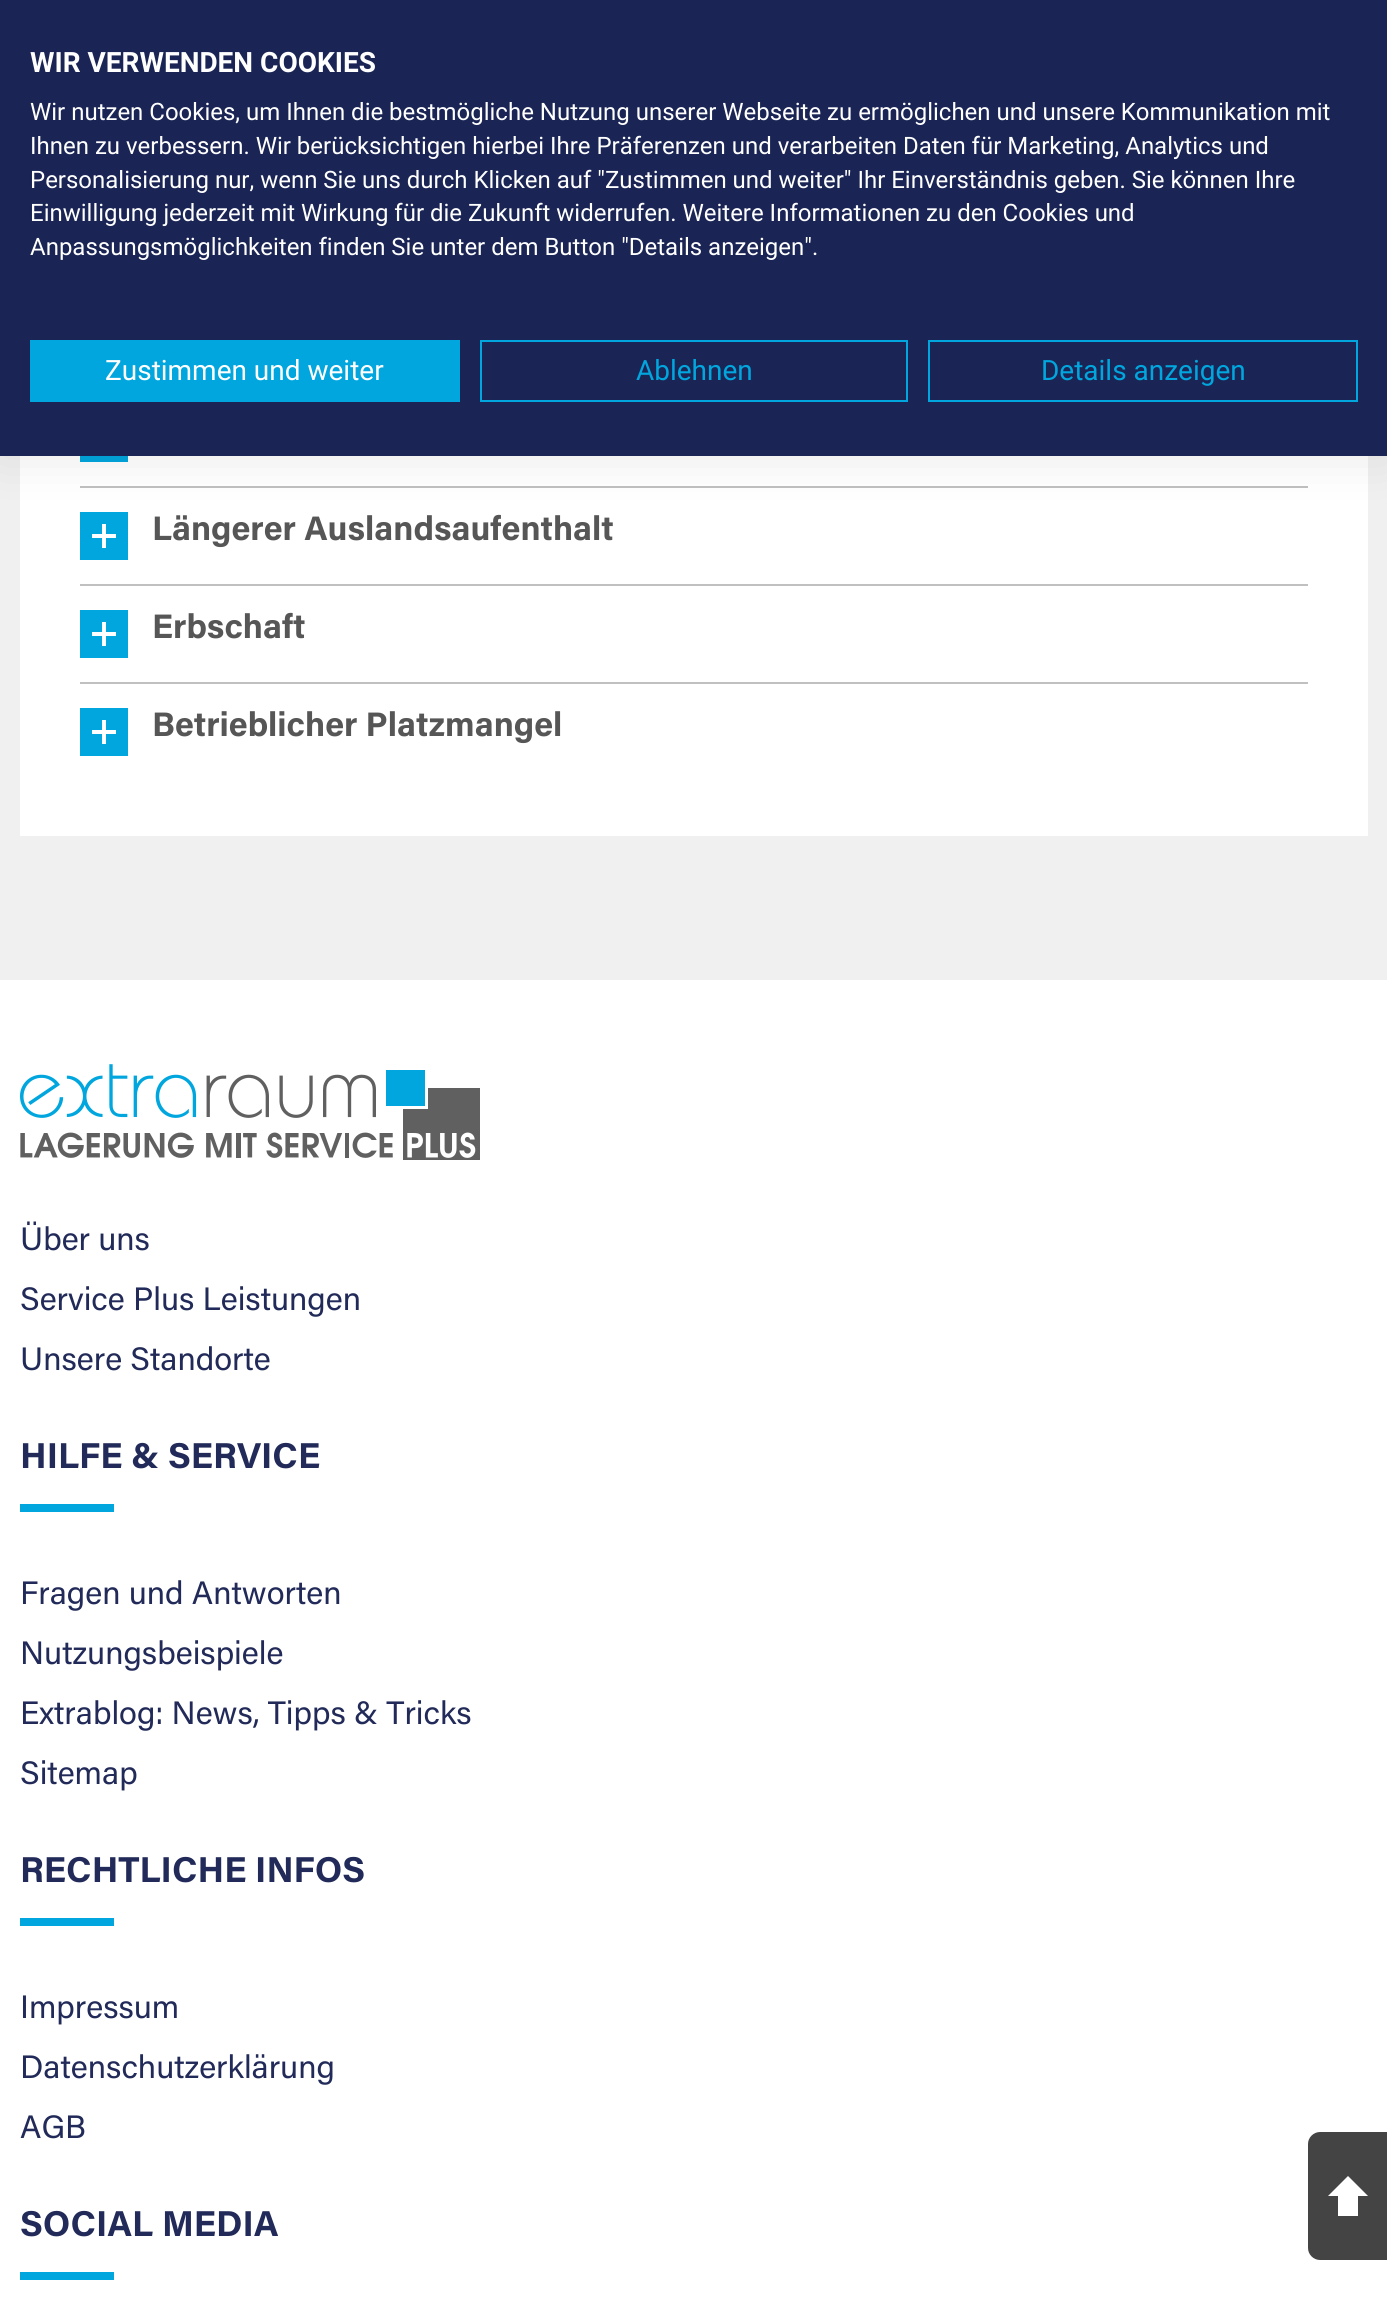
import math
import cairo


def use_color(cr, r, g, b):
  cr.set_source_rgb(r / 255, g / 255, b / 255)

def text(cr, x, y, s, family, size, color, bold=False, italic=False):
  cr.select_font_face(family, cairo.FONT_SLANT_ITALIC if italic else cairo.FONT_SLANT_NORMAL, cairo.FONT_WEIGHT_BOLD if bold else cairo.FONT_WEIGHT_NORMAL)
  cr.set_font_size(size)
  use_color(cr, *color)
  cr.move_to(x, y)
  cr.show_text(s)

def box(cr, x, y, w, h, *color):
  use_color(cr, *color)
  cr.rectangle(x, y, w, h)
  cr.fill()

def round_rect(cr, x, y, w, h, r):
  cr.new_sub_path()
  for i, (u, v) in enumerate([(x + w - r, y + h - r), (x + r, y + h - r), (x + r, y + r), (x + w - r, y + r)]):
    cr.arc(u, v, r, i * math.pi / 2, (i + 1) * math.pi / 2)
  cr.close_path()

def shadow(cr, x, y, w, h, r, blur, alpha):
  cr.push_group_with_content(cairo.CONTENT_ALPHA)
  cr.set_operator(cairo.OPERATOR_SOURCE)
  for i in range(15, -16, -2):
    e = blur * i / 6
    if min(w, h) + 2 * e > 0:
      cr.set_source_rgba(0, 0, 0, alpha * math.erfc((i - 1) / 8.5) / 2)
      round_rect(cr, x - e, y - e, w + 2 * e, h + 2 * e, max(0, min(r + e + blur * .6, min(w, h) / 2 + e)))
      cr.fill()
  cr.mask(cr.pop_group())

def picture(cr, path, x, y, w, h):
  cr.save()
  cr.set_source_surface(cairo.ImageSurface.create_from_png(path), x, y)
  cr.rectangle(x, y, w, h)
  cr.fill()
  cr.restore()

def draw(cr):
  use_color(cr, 240, 240, 240)
  cr.paint()
  box(cr, 20, 456, 1348, 380, 255, 255, 255)
  box(cr, 80, 456, 48, 6, 0, 166, 221)
  box(cr, 80, 486, 1228, 2, 192, 192, 192)
  box(cr, 80, 512, 48, 48, 0, 166, 221)
  box(cr, 92, 534, 24, 4, 255, 255, 255)
  box(cr, 102, 524, 4, 24, 255, 255, 255)
  use_color(cr, 0, 0, 0)
  shadow(cr, 0, 0, 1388, 456, 0, 24, 0.1)
  box(cr, 0, 0, 1387, 456, 26, 37, 85)
  box(cr, 30, 340, 430, 62, 0, 166, 221)
  cr.rectangle(481, 341, 426, 60)
  cr.stroke()
  cr.rectangle(929, 341, 428, 60)
  cr.stroke()
  box(cr, 80, 584, 1228, 2, 192, 192, 192)
  box(cr, 80, 610, 48, 48, 0, 166, 221)
  box(cr, 92, 632, 24, 4, 255, 255, 255)
  box(cr, 102, 622, 4, 24, 255, 255, 255)
  box(cr, 80, 682, 1228, 2, 192, 192, 192)
  box(cr, 80, 708, 48, 48, 0, 166, 221)
  box(cr, 92, 730, 24, 4, 255, 255, 255)
  box(cr, 102, 720, 4, 24, 255, 255, 255)
  box(cr, 0, 980, 1387, 1344, 255, 255, 255)
  picture(cr, "img_01.png", 20, 1064, 460, 96)
  box(cr, 20, 1504, 94, 8, 0, 166, 221)
  box(cr, 20, 1918, 94, 8, 0, 166, 221)
  box(cr, 20, 2272, 94, 8, 0, 166, 221)
  use_color(cr, 68, 68, 68)
  cr.new_path()
  cr.move_to(1320, 2132)
  cr.line_to(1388, 2132)
  cr.line_to(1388, 2260)
  cr.line_to(1320, 2260)
  cr.curve_to(1313.5, 2260, 1308, 2254.5, 1308, 2248)
  cr.line_to(1308, 2144)
  cr.curve_to(1308, 2137.5, 1313.5, 2132, 1320, 2132)
  cr.close_path()
  cr.fill()
  use_color(cr, 255, 255, 255)
  cr.new_path()
  cr.move_to(1368, 2196)
  cr.line_to(1328, 2196)
  cr.line_to(1348, 2176)
  cr.close_path()
  cr.fill()
  box(cr, 1338, 2196, 20, 20, 255, 255, 255)
  text(cr, 30, 72, "WIR VERWENDEN COOKIES", "Roboto", 28, (255, 255, 255), bold=True)
  text(cr, 30, 120, "Wir nutzen Cookies, um Ihnen die bestmögliche Nutzung unserer Webseite zu ermöglichen und unsere Kommunikation mit", "Roboto", 24, (255, 255, 255))
  text(cr, 30, 154, "Ihnen zu verbessern. Wir berücksichtigen hierbei Ihre Präferenzen und verarbeiten Daten für Marketing, Analytics und", "Roboto", 24, (255, 255, 255))
  text(cr, 30, 188, "Personalisierung nur, wenn Sie uns durch Klicken auf \"Zustimmen und weiter\" Ihr Einverständnis geben. Sie können Ihre", "Roboto", 24, (255, 255, 255))
  text(cr, 30, 221, "Einwilligung jederzeit mit Wirkung für die Zukunft widerrufen. Weitere Informationen zu den Cookies und", "Roboto", 24, (255, 255, 255))
  text(cr, 30, 255, "Anpassungsmöglichkeiten finden Sie unter dem Button \"Details anzeigen\".", "Roboto", 24, (255, 255, 255))
  text(cr, 105, 380, "Zustimmen und weiter", "Roboto", 28, (255, 255, 255))
  text(cr, 636, 380, "Ablehnen", "Roboto", 28, (0, 166, 221))
  text(cr, 1041, 380, "Details anzeigen", "Roboto", 28, (0, 166, 221))
  text(cr, 152, 540, "Längerer Auslandsaufenthalt", "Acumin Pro", 34, (87, 86, 86), bold=True)
  text(cr, 152, 638, "Erbschaft", "Acumin Pro", 34, (87, 86, 86), bold=True)
  text(cr, 152, 736, "Betrieblicher Platzmangel", "Acumin Pro", 34, (87, 86, 86), bold=True)
  text(cr, 20, 1250, "Über uns", "Acumin Pro", 32.4, (33, 42, 88))
  text(cr, 20, 1310, "Service Plus Leistungen", "Acumin Pro", 32.4, (33, 42, 88))
  text(cr, 20, 1370, "Unsere Standorte", "Acumin Pro", 32.4, (33, 42, 88))
  text(cr, 20, 1468, "HILFE & SERVICE", "Acumin Pro", 36, (33, 42, 88), bold=True)
  text(cr, 20, 1604, "Fragen und Antworten", "Acumin Pro", 32.4, (33, 42, 88))
  text(cr, 20, 1664, "Nutzungsbeispiele", "Acumin Pro", 32.4, (33, 42, 88))
  text(cr, 20, 1724, "Extrablog: News, Tipps & Tricks", "Acumin Pro", 32.4, (33, 42, 88))
  text(cr, 20, 1784, "Sitemap", "Acumin Pro", 32.4, (33, 42, 88))
  text(cr, 20, 1882, "RECHTLICHE INFOS", "Acumin Pro", 36, (33, 42, 88), bold=True)
  text(cr, 20, 2018, "Impressum", "Acumin Pro", 32.4, (33, 42, 88))
  text(cr, 20, 2078, "Datenschutzerklärung", "Acumin Pro", 32.4, (33, 42, 88))
  text(cr, 20, 2138, "AGB", "Acumin Pro", 32.4, (33, 42, 88))
  text(cr, 20, 2236, "SOCIAL MEDIA", "Acumin Pro", 36, (33, 42, 88), bold=True)


surface = cairo.ImageSurface(cairo.FORMAT_RGB24, 1387, 2324)
cr = cairo.Context(surface)
options = cairo.FontOptions()
options.set_hint_metrics(cairo.HINT_METRICS_OFF)
options.set_hint_style(cairo.HINT_STYLE_NONE)
cr.set_font_options(options)
cr.set_miter_limit(4)
draw(cr)
surface.write_to_png("out.png")
